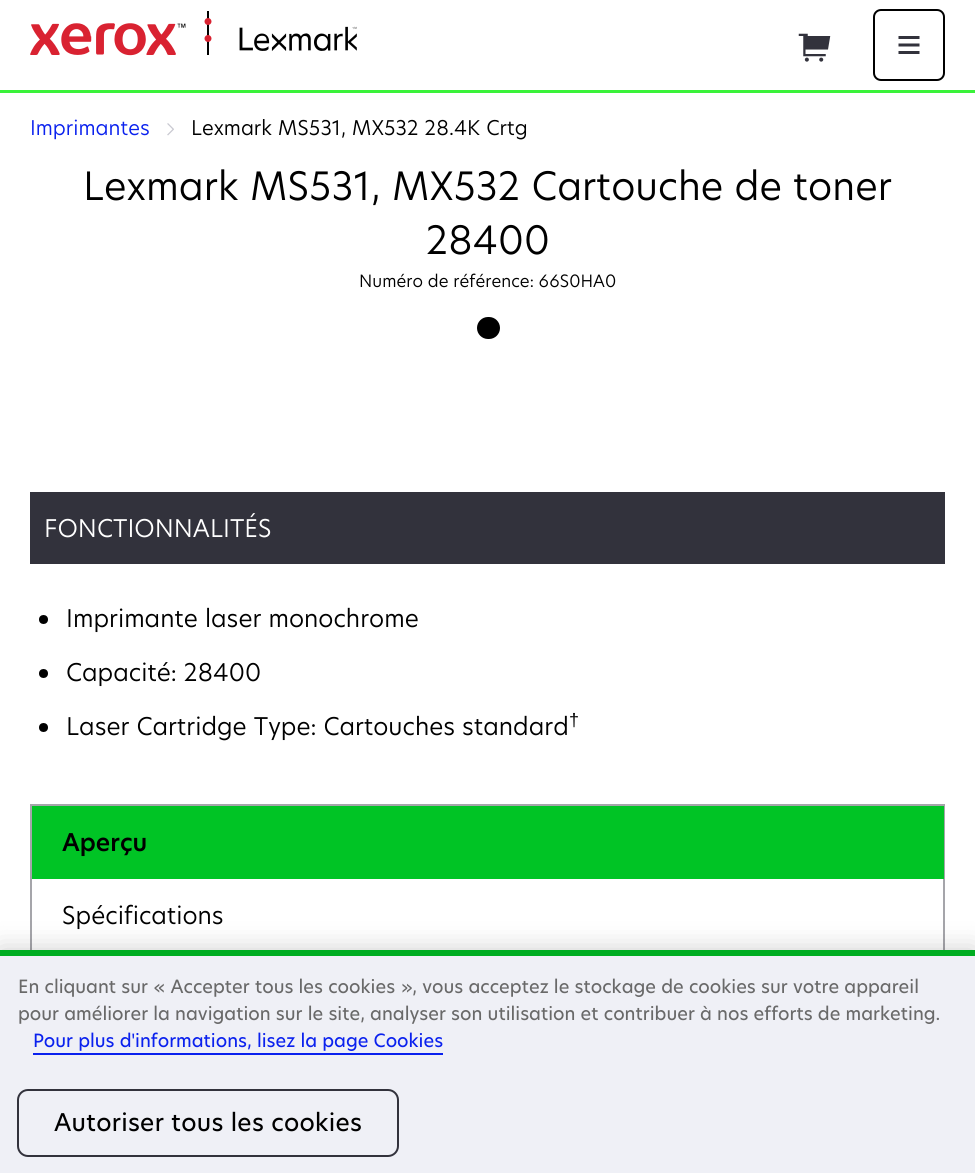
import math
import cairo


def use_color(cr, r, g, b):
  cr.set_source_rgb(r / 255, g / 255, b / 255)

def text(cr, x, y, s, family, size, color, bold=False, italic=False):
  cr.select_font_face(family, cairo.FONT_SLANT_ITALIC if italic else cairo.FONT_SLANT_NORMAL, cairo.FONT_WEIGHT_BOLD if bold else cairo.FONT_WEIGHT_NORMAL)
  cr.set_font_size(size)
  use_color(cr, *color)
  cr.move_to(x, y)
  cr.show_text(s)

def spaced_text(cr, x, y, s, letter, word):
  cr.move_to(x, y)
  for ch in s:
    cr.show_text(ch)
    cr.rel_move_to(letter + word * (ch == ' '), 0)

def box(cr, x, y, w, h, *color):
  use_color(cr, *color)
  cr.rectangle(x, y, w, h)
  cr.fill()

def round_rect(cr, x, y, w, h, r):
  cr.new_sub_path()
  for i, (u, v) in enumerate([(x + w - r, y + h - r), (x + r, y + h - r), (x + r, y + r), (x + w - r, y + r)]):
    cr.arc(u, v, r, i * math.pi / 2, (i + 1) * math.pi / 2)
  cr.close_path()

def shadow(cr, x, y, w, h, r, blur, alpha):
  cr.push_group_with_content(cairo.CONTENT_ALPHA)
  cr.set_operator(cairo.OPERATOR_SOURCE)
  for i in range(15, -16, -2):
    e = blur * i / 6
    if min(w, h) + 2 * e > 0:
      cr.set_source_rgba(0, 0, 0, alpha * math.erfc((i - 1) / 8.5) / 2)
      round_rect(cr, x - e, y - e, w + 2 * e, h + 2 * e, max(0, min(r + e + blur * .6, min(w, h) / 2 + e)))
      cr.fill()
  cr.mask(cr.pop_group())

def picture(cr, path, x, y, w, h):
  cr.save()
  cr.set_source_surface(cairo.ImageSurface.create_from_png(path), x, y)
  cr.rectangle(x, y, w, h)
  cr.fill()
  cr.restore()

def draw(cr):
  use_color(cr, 255, 255, 255)
  cr.paint()
  box(cr, 0, 90, 975, 3, 58, 242, 58)
  picture(cr, "img_01.png", 30, 11, 327, 45)
  picture(cr, "img_02.png", 798, 33, 33, 29)
  round_rect(cr, 874, 10, 70, 70, 7)
  use_color(cr, 0, 0, 0)
  cr.stroke()
  picture(cr, "img_03.png", 898, 36, 22, 18)
  picture(cr, "img_04.png", 167, 123, 7, 13)
  round_rect(cr, 477, 317, 23, 22, 11)
  cr.fill()
  box(cr, 30, 492, 915, 72, 50, 50, 60)
  use_color(cr, 0, 0, 0)
  cr.arc(43.5, 619.5, 4.5, 0, 2 * math.pi)
  cr.fill()
  cr.arc(43.5, 673.5, 4.5, 0, 2 * math.pi)
  cr.fill()
  cr.arc(43.5, 727.5, 4.5, 0, 2 * math.pi)
  cr.fill()
  cr.rectangle(31, 805, 913, 222)
  use_color(cr, 165, 165, 170)
  cr.stroke()
  box(cr, 32, 806, 912, 73, 0, 196, 37)
  use_color(cr, 0, 0, 0)
  shadow(cr, 0, 950, 975, 223, 0, 13.5, 0.2)
  box(cr, 0, 956, 975, 217, 239, 240, 246)
  box(cr, 0, 950, 975, 6, 0, 173, 33)
  box(cr, 33, 1053, 410, 2, 10, 33, 238)
  round_rect(cr, 18, 1090, 380, 66, 10)
  use_color(cr, 50, 50, 60)
  cr.stroke()
  text(cr, 30, 135, "Imprimantes", "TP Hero", 20, (10, 33, 238))
  text(cr, 191, 135, "Lexmark MS531, MX532 28.4K Crtg", "TP Hero", 20, (0, 0, 0))
  text(cr, 83, 200, "Lexmark MS531, MX532 Cartouche de toner", "TP Hero", 38.4, (0, 0, 0))
  text(cr, 426, 254, "28400", "TP Hero", 38.4, (0, 0, 0))
  text(cr, 359, 287, "Numéro de référence: 66S0HA0", "TP Hero", 16.7, (0, 0, 0))
  text(cr, 44, 537, "FONCTIONNALITÉS", "TP Hero", 24, (255, 255, 255))
  text(cr, 66, 627, "Imprimante laser monochrome", "TP Hero", 24, (0, 0, 0))
  text(cr, 66, 681, "Capacité: 28400", "TP Hero", 24, (0, 0, 0))
  text(cr, 66, 735, "Laser Cartridge Type: Cartouches standard", "TP Hero", 24, (0, 0, 0))
  text(cr, 569, 726, "†", "Liberation Sans", 18, (0, 0, 0))
  text(cr, 62, 851, "Aperçu", "TP Hero SemiBold", 24, (0, 0, 0))
  text(cr, 62, 924, "Spécifications", "TP Hero", 24, (0, 0, 0))
  text(cr, 18, 993, "En cliquant sur « Accepter tous les cookies », vous acceptez le stockage de cookies sur votre appareil", "TP Hero Medium", 18, (105, 105, 105))
  text(cr, 18, 1020, "pour améliorer la navigation sur le site, analyser son utilisation et contribuer à nos efforts de marketing.", "TP Hero Medium", 18, (105, 105, 105))
  text(cr, 33, 1047, "Pour plus d'informations, lisez la page Cookies", "TP Hero Medium", 18, (10, 33, 238))
  cr.set_font_size(24)
  use_color(cr, 0, 0, 0)
  spaced_text(cr, 54, 1131, "Autoriser tous les cookies", 0.25, 0)


surface = cairo.ImageSurface(cairo.FORMAT_RGB24, 975, 1173)
cr = cairo.Context(surface)
options = cairo.FontOptions()
options.set_hint_metrics(cairo.HINT_METRICS_OFF)
options.set_hint_style(cairo.HINT_STYLE_NONE)
cr.set_font_options(options)
cr.set_miter_limit(4)
draw(cr)
surface.write_to_png("out.png")
